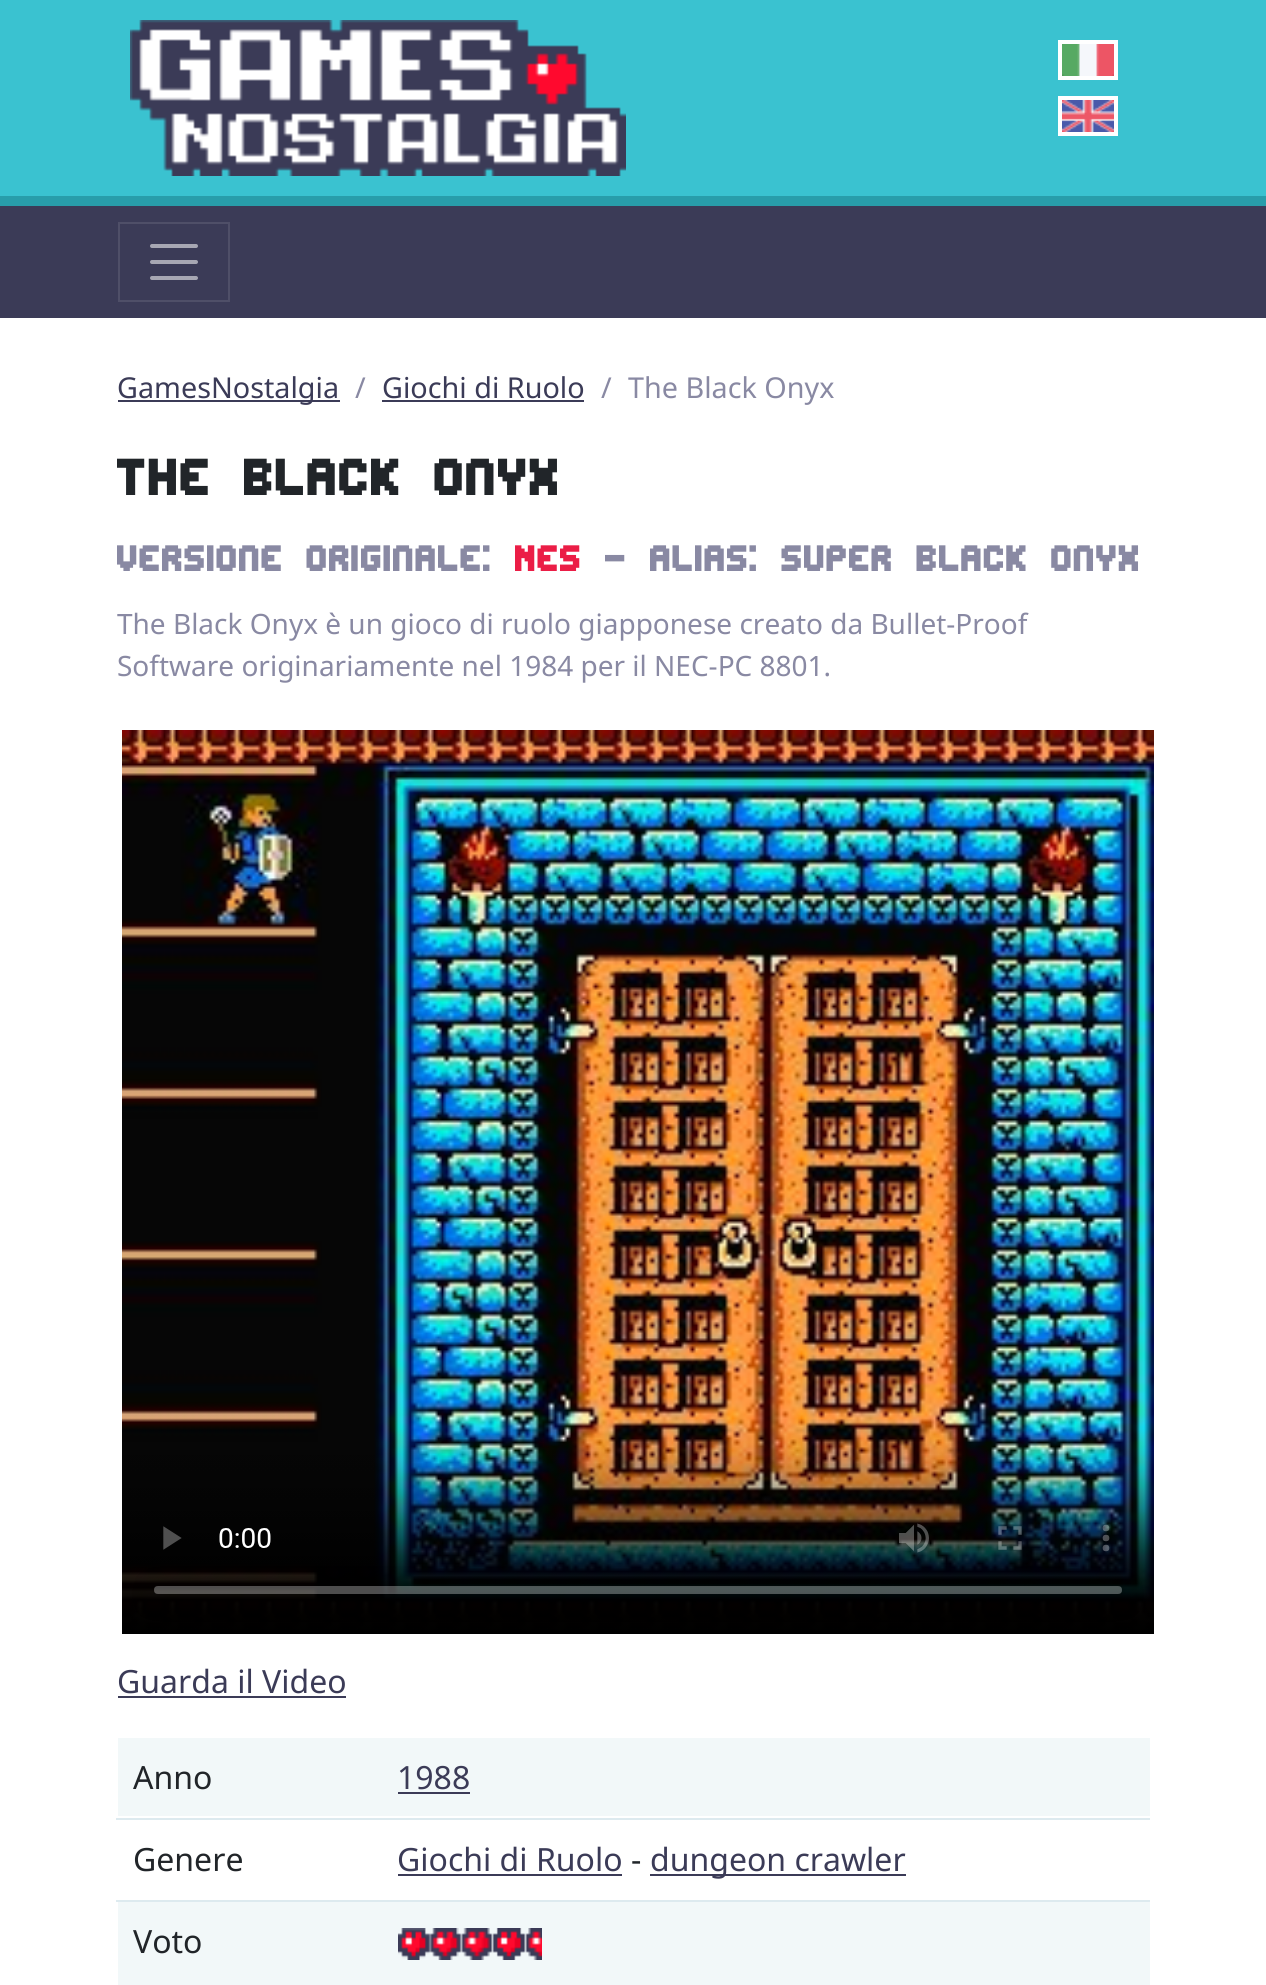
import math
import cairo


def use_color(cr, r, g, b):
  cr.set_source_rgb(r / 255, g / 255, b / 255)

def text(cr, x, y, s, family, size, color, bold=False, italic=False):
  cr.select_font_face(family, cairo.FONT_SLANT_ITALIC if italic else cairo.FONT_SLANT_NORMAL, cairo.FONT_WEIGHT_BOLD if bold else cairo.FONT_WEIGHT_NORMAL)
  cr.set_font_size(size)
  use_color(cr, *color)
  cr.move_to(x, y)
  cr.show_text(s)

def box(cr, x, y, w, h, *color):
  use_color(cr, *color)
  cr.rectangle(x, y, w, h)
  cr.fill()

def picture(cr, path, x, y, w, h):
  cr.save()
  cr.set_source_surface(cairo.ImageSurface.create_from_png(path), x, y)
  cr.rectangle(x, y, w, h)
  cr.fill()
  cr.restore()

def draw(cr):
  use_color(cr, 255, 255, 255)
  cr.paint()
  box(cr, 0, 0, 1266, 196, 58, 194, 208)
  box(cr, 0, 196, 1266, 10, 40, 157, 170)
  picture(cr, "img_01.png", 130, 20, 496, 156)
  cr.rectangle(1060, 42, 56, 36)
  use_color(cr, 255, 255, 255)
  cr.set_line_width(4)
  cr.stroke()
  picture(cr, "img_02.png", 1062, 44, 52, 32)
  cr.rectangle(1060, 98, 56, 36)
  cr.stroke()
  picture(cr, "img_03.png", 1062, 100, 52, 32)
  box(cr, 0, 206, 1266, 112, 59, 59, 87)
  cr.rectangle(119, 223, 110, 78)
  use_color(cr, 79, 79, 104)
  cr.set_line_width(2)
  cr.stroke()
  cr.new_path()
  cr.move_to(152, 246)
  cr.line_to(196, 246)
  cr.move_to(152, 262)
  cr.line_to(196, 262)
  cr.move_to(152, 278)
  cr.line_to(196, 278)
  use_color(cr, 167, 167, 179)
  cr.set_line_width(4)
  cr.set_line_cap(cairo.LINE_CAP_ROUND)
  cr.stroke()
  box(cr, 118, 400, 222, 2, 59, 59, 87)
  box(cr, 382, 400, 202, 2, 59, 59, 87)
  picture(cr, "img_04.png", 122, 730, 1032, 904)
  box(cr, 118, 1696, 228, 2, 59, 59, 87)
  box(cr, 118, 1738, 1032, 78, 242, 248, 249)
  box(cr, 116, 1818, 1034, 2, 221, 234, 239)
  box(cr, 398, 1792, 72, 2, 59, 59, 87)
  box(cr, 116, 1900, 1034, 2, 221, 234, 239)
  box(cr, 398, 1874, 224, 2, 59, 59, 87)
  box(cr, 650, 1874, 256, 2, 59, 59, 87)
  box(cr, 118, 1902, 1032, 83, 242, 248, 249)
  picture(cr, "img_05.png", 398, 1928, 144, 32)
  text(cr, 117, 398, "GamesNostalgia", "Noto Sans", 28.75, (59, 59, 87))
  text(cr, 355, 398, "/", "Noto Sans", 28.75, (137, 137, 163))
  text(cr, 382, 398, "Giochi di Ruolo", "Noto Sans", 28.75, (59, 59, 87))
  text(cr, 601, 398, "/", "Noto Sans", 28.75, (137, 137, 163))
  text(cr, 628, 398, "The Black Onyx", "Noto Sans", 28.75, (137, 137, 163))
  text(cr, 117, 495, "The Black Onyx", "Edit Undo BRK", 63, (33, 37, 41))
  text(cr, 117, 571, "Versione Originale:", "Edit Undo BRK", 44.6, (137, 137, 163))
  text(cr, 515, 571, "NES", "Edit Undo BRK", 44.6, (235, 29, 70))
  text(cr, 605, 571, "- Alias: Super Black Onyx", "Edit Undo BRK", 44.6, (137, 137, 163))
  text(cr, 117, 634, "The Black Onyx è un gioco di ruolo giapponese creato da Bullet-Proof", "Noto Sans", 28, (137, 137, 163))
  text(cr, 117, 676, "Software originariamente nel 1984 per il NEC-PC 8801.", "Noto Sans", 28, (137, 137, 163))
  text(cr, 117, 1693, "Guarda il Video", "Noto Sans", 32, (59, 59, 87))
  text(cr, 133, 1789, "Anno", "Noto Sans", 32, (33, 37, 41))
  text(cr, 397, 1789, "1988", "Noto Sans", 32, (59, 59, 87))
  text(cr, 133, 1871, "Genere", "Noto Sans", 32, (33, 37, 41))
  text(cr, 397, 1871, "Giochi di Ruolo", "Noto Sans", 32, (59, 59, 87))
  text(cr, 631, 1871, "-", "Noto Sans", 32, (33, 37, 41))
  text(cr, 650, 1871, "dungeon crawler", "Noto Sans", 32, (59, 59, 87))
  text(cr, 133, 1953, "Voto", "Noto Sans", 32, (33, 37, 41))


surface = cairo.ImageSurface(cairo.FORMAT_RGB24, 1266, 1985)
cr = cairo.Context(surface)
options = cairo.FontOptions()
options.set_hint_metrics(cairo.HINT_METRICS_OFF)
options.set_hint_style(cairo.HINT_STYLE_NONE)
cr.set_font_options(options)
cr.set_miter_limit(4)
draw(cr)
surface.write_to_png("out.png")
